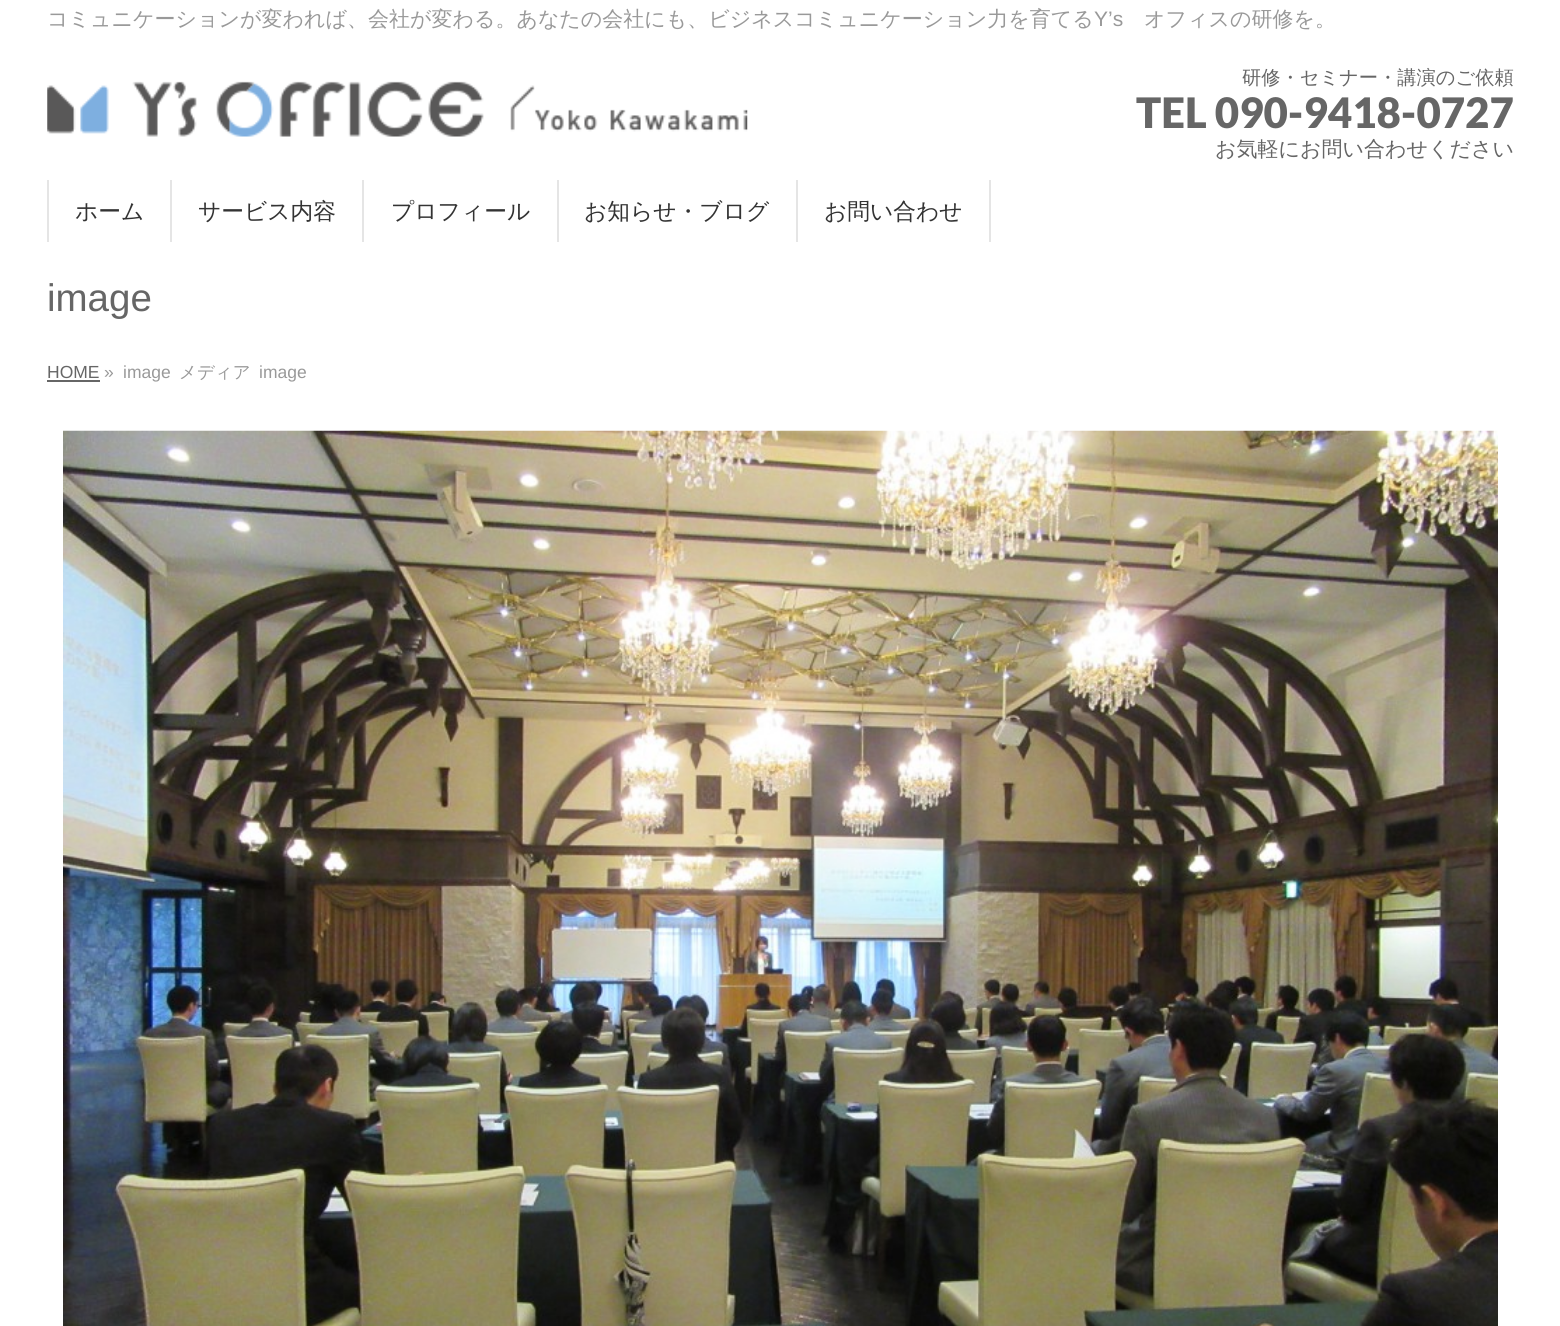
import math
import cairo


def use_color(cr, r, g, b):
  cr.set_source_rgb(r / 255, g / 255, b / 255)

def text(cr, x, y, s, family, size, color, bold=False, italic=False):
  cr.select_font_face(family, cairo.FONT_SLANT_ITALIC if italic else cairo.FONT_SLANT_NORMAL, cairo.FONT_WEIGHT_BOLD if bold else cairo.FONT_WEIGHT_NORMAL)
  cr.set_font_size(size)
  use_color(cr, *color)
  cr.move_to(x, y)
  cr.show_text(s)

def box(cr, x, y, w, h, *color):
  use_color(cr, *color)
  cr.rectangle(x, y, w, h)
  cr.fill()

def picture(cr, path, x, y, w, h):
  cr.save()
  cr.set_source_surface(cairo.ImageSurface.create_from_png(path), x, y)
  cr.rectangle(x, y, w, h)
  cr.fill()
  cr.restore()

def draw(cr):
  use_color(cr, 255, 255, 255)
  cr.paint()
  picture(cr, "img_01.png", 47, 81, 701, 56)
  box(cr, 47, 180, 2, 62, 229, 229, 229)
  box(cr, 170, 180, 2, 62, 229, 229, 229)
  box(cr, 362, 180, 2, 62, 229, 229, 229)
  box(cr, 557, 180, 2, 62, 229, 229, 229)
  box(cr, 796, 180, 2, 62, 229, 229, 229)
  box(cr, 989, 180, 2, 62, 229, 229, 229)
  box(cr, 47, 380, 53, 2, 102, 102, 102)
  picture(cr, "img_02.png", 63, 430, 1435, 896)
  text(cr, 47, 26, "コミュニケーションが変われば、会社が変わる。あなたの会社にも、ビジネスコミュニケーション力を育てる", "WenQuanYi Zen Hei Medium", 21, (153, 153, 153))
  text(cr, 1094, 26, "Y’s", "Liberation Sans", 21, (153, 153, 153))
  text(cr, 1144, 26, "オフィスの研修を。", "WenQuanYi Zen Hei Medium", 21, (153, 153, 153))
  text(cr, 1242, 84, "研修・セミナー・講演のご依頼", "WenQuanYi Zen Hei Medium", 19.25, (102, 102, 102))
  text(cr, 1136, 128, "TEL 090-9418-0727", "Lato Black", 42, (102, 102, 102))
  text(cr, 1215, 156, "お気軽にお問い合わせください", "WenQuanYi Zen Hei Medium", 21, (102, 102, 102))
  text(cr, 75, 219, "ホーム", "WenQuanYi Zen Hei Medium", 22.75, (51, 51, 51))
  text(cr, 198, 219, "サービス内容", "WenQuanYi Zen Hei Medium", 22.75, (51, 51, 51))
  text(cr, 391, 219, "プロフィール", "WenQuanYi Zen Hei Medium", 22.75, (51, 51, 51))
  text(cr, 584, 219, "お知らせ・ブログ", "WenQuanYi Zen Hei Medium", 22.75, (51, 51, 51))
  text(cr, 824, 219, "お問い合わせ", "WenQuanYi Zen Hei Medium", 22.75, (51, 51, 51))
  text(cr, 47, 311, "image", "Liberation Sans", 38.5, (102, 102, 102))
  text(cr, 47, 378, "HOME", "Liberation Sans", 17.5, (102, 102, 102))
  text(cr, 104, 378, "»", "Liberation Sans", 17.5, (153, 153, 153))
  text(cr, 123, 378, "image", "Liberation Sans", 17.5, (153, 153, 153))
  text(cr, 179, 378, "メディア", "WenQuanYi Zen Hei Medium", 17.5, (153, 153, 153))
  text(cr, 259, 378, "image", "Liberation Sans", 17.5, (153, 153, 153))


surface = cairo.ImageSurface(cairo.FORMAT_RGB24, 1560, 1326)
cr = cairo.Context(surface)
options = cairo.FontOptions()
options.set_hint_metrics(cairo.HINT_METRICS_OFF)
options.set_hint_style(cairo.HINT_STYLE_NONE)
cr.set_font_options(options)
cr.set_miter_limit(4)
draw(cr)
surface.write_to_png("out.png")
